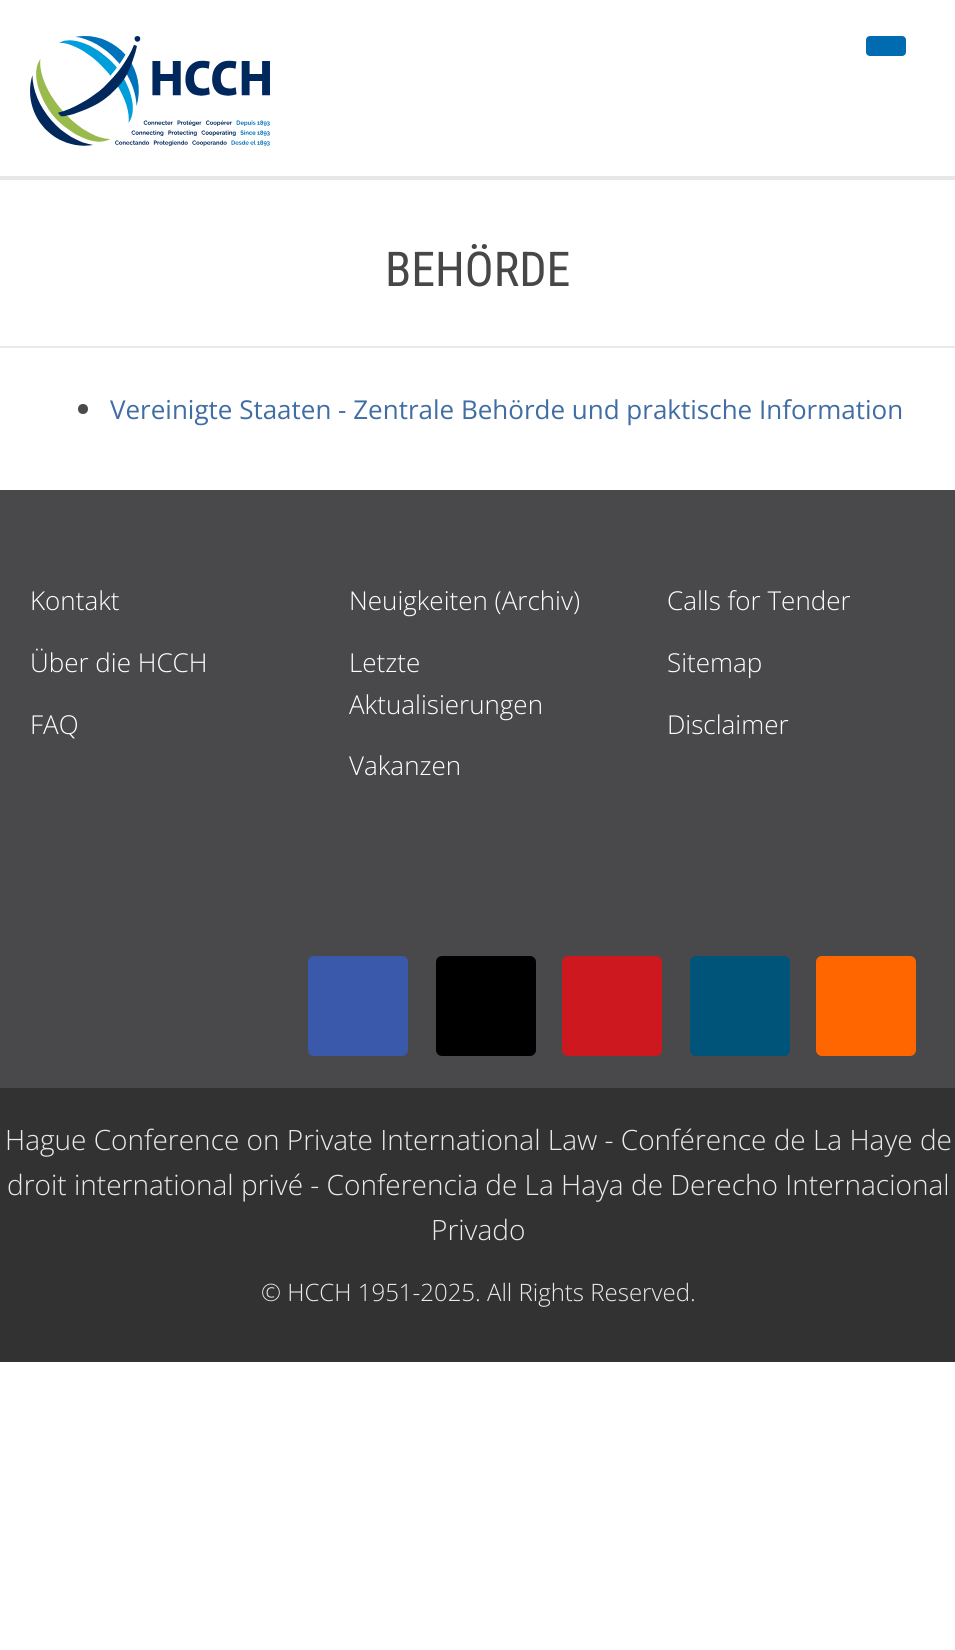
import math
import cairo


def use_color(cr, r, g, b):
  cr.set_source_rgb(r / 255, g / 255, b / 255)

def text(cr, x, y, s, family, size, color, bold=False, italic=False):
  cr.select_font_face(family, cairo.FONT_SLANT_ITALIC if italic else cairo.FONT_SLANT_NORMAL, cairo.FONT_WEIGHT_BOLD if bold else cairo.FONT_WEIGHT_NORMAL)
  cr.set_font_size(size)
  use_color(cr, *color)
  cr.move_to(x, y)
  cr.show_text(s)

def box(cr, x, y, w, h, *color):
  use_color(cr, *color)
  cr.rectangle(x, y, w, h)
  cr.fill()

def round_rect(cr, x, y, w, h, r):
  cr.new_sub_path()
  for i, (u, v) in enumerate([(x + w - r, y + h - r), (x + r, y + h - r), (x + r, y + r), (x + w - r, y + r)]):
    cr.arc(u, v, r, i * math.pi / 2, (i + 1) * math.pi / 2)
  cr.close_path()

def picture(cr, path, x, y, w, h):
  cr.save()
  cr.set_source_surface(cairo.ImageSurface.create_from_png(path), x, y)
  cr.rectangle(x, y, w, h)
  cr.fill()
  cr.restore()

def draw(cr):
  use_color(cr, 255, 255, 255)
  cr.paint()
  box(cr, 0, 176, 955, 4, 231, 231, 231)
  picture(cr, "img_01.png", 30, 36, 240, 110)
  use_color(cr, 0, 107, 176)
  round_rect(cr, 866, 36, 40, 20, 4)
  cr.fill()
  box(cr, 0, 346, 955, 2, 234, 234, 234)
  use_color(cr, 74, 74, 74)
  cr.arc(83, 409, 5, 0, 2 * math.pi)
  cr.fill()
  box(cr, 0, 490, 955, 598, 73, 73, 75)
  use_color(cr, 59, 89, 171)
  round_rect(cr, 308, 956, 100, 100, 6)
  cr.fill()
  use_color(cr, 0, 0, 0)
  round_rect(cr, 436, 956, 100, 100, 6)
  cr.fill()
  use_color(cr, 204, 24, 30)
  round_rect(cr, 562, 956, 100, 100, 6)
  cr.fill()
  use_color(cr, 0, 84, 121)
  round_rect(cr, 690, 956, 100, 100, 6)
  cr.fill()
  use_color(cr, 255, 102, 0)
  round_rect(cr, 816, 956, 100, 100, 6)
  cr.fill()
  box(cr, 0, 1088, 955, 274, 50, 50, 50)
  text(cr, 385, 286, "BEHÖRDE", "Roboto Condensed", 48, (71, 71, 71))
  text(cr, 110, 419, "Vereinigte Staaten - Zentrale Behörde und praktische Information", "Open Sans", 26, (64, 109, 164))
  text(cr, 30, 610, "Kontakt", "Open Sans Light", 26, (255, 255, 255))
  text(cr, 30, 672, "Über die HCCH", "Open Sans Light", 26, (255, 255, 255))
  text(cr, 30, 734, "FAQ", "Open Sans Light", 26, (255, 255, 255))
  text(cr, 349, 610, "Neuigkeiten (Archiv)", "Open Sans Light", 26, (255, 255, 255))
  text(cr, 349, 672, "Letzte", "Open Sans Light", 26, (255, 255, 255))
  text(cr, 349, 714, "Aktualisierungen", "Open Sans Light", 26, (255, 255, 255))
  text(cr, 349, 775, "Vakanzen", "Open Sans Light", 26, (255, 255, 255))
  text(cr, 667, 610, "Calls for Tender", "Open Sans Light", 26, (255, 255, 255))
  text(cr, 667, 672, "Sitemap", "Open Sans Light", 26, (255, 255, 255))
  text(cr, 667, 734, "Disclaimer", "Open Sans Light", 26, (255, 255, 255))
  text(cr, 5, 1150, "Hague Conference on Private International Law - Conférence de La Haye de", "Open Sans Light", 28, (234, 234, 234))
  text(cr, 7, 1195, "droit international privé - Conferencia de La Haya de Derecho Internacional", "Open Sans Light", 28, (234, 234, 234))
  text(cr, 431, 1240, "Privado", "Open Sans Light", 28, (234, 234, 234))
  text(cr, 261, 1301, "© HCCH 1951-2025. All Rights Reserved.", "Open Sans Light", 24, (234, 234, 234))


surface = cairo.ImageSurface(cairo.FORMAT_RGB24, 955, 1650)
cr = cairo.Context(surface)
options = cairo.FontOptions()
options.set_hint_metrics(cairo.HINT_METRICS_OFF)
options.set_hint_style(cairo.HINT_STYLE_NONE)
cr.set_font_options(options)
cr.set_miter_limit(4)
draw(cr)
surface.write_to_png("out.png")
